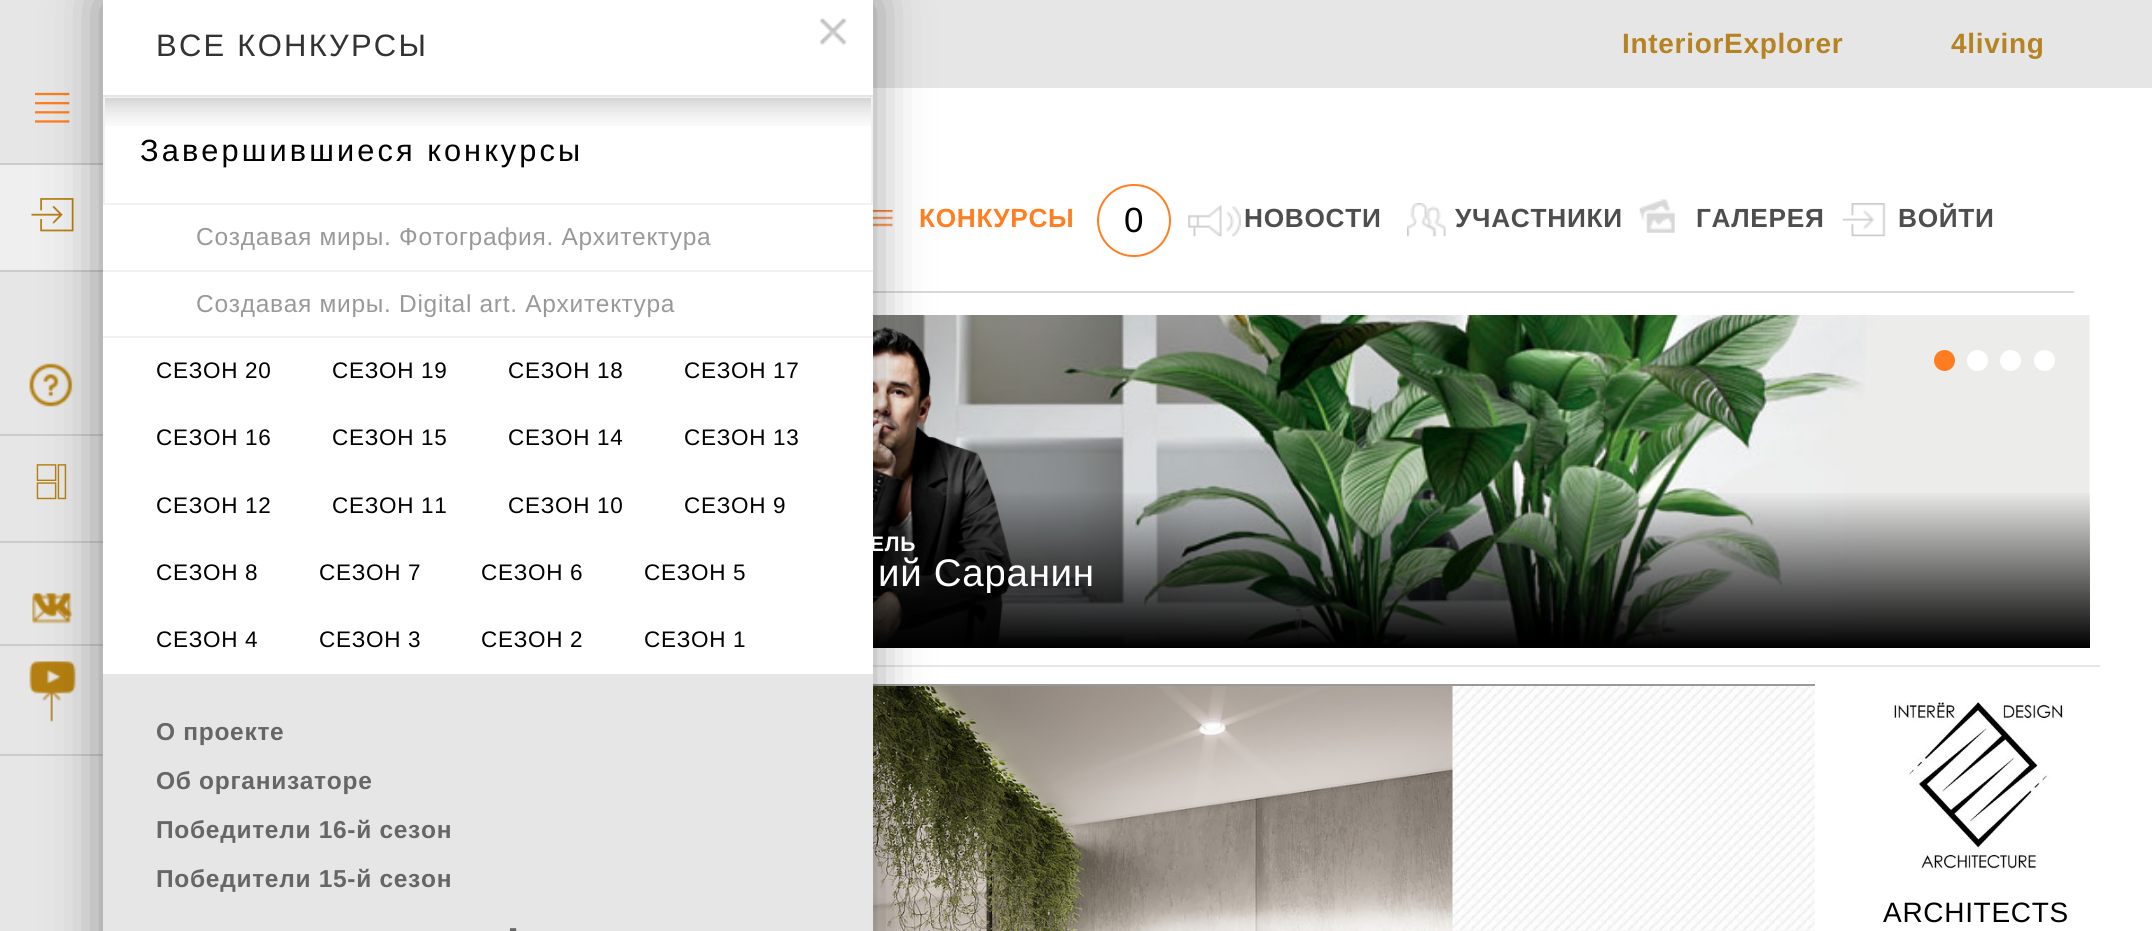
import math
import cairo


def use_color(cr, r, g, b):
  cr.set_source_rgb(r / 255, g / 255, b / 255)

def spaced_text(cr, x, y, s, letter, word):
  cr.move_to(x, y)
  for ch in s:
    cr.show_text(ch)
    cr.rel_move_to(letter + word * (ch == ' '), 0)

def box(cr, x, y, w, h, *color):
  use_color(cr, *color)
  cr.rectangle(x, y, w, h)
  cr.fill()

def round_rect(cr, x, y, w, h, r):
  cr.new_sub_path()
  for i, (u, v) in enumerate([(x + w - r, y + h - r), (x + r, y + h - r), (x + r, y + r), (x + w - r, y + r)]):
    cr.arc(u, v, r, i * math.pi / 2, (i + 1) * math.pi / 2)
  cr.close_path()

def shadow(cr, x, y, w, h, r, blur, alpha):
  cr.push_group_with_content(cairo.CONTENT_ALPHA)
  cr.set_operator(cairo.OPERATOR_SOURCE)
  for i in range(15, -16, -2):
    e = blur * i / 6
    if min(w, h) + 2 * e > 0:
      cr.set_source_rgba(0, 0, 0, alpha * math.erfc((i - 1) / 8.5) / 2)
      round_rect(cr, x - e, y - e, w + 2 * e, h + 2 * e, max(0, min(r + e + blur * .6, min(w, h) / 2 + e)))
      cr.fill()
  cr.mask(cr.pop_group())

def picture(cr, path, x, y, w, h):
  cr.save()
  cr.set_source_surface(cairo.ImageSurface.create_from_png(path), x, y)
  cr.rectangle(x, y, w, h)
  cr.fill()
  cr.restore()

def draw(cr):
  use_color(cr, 230, 230, 230)
  cr.paint()
  box(cr, 0, 163, 103, 2, 204, 204, 204)
  picture(cr, "img_01.png", 35, 92, 35, 31)
  box(cr, 0, 270, 103, 2, 204, 204, 204)
  box(cr, 0, 165, 103, 105, 239, 239, 239)
  picture(cr, "img_02.png", 31, 198, 43, 34)
  box(cr, 0, 434, 103, 2, 204, 204, 204)
  picture(cr, "img_03.png", 29, 363, 44, 44)
  box(cr, 0, 541, 103, 2, 204, 204, 204)
  picture(cr, "img_04.png", 36, 464, 31, 36)
  picture(cr, "img_05.png", 32, 592, 41, 25)
  picture(cr, "img_06.png", 29, 661, 47, 33)
  box(cr, 0, 644, 103, 2, 204, 204, 204)
  picture(cr, "img_07.png", 32, 594, 40, 30)
  box(cr, 0, 754, 103, 2, 204, 204, 204)
  picture(cr, "img_08.png", 42, 690, 20, 32)
  box(cr, 873, 88, 1279, 843, 255, 255, 255)
  picture(cr, "img_11.png", 873, 210, 20, 17)
  box(cr, 873, 291, 1201, 2, 217, 217, 217)
  box(cr, 873, 665, 1227, 2, 230, 230, 230)
  picture(cr, "img_16.png", 873, 315, 1217, 332)
  picture(cr, "img_17.png", 873, 327, 140, 320)
  gradient = cairo.LinearGradient(1408, 490, 1408, 648)
  gradient.add_color_stop_rgba(0, 0, 0, 0, 0)
  gradient.add_color_stop_rgba(1, 0, 0, 0, 1)
  cr.set_source(gradient)
  cr.rectangle(873, 493, 1217, 155)
  cr.fill()
  box(cr, 873, 684, 942, 2, 153, 153, 153)
  picture(cr, "img_18.png", 1452, 686, 363, 245)
  picture(cr, "img_19.png", 873, 686, 580, 245)
  use_color(cr, 0, 0, 0)
  shadow(cr, 103, 0, 770, 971, 0, 26, 0.4)
  box(cr, 103, 0, 770, 674, 255, 255, 255)
  picture(cr, "img_09.png", 105, 98, 766, 28)
  cr.rectangle(104, 97, 768, 107)
  use_color(cr, 242, 242, 242)
  cr.stroke()
  box(cr, 103, 95, 770, 2, 230, 230, 230)
  box(cr, 103, 270, 770, 2, 242, 242, 242)
  box(cr, 103, 336, 770, 2, 242, 242, 242)
  picture(cr, "img_10.png", 819, 17, 28, 29)
  box(cr, 103, 674, 770, 257, 230, 230, 230)
  round_rect(cr, 1098, 185, 72, 71, 35.5)
  use_color(cr, 255, 126, 34)
  cr.stroke()
  picture(cr, "img_12.png", 1188, 204, 53, 33)
  picture(cr, "img_13.png", 1407, 203, 39, 34)
  picture(cr, "img_14.png", 1639, 199, 36, 34)
  picture(cr, "img_15.png", 1842, 203, 44, 34)
  use_color(cr, 255, 125, 33)
  cr.arc(1944.5, 360.5, 10.5, 0, 2 * math.pi)
  cr.fill()
  use_color(cr, 255, 255, 255)
  cr.arc(1977.5, 360.5, 10.5, 0, 2 * math.pi)
  cr.fill()
  cr.arc(2010.5, 360.5, 10.5, 0, 2 * math.pi)
  cr.fill()
  cr.arc(2044.5, 360.5, 10.5, 0, 2 * math.pi)
  cr.fill()
  picture(cr, "img_20.png", 1893, 702, 171, 167)
  cr.select_font_face("Liberation Sans")
  cr.set_font_size(31)
  use_color(cr, 51, 51, 51)
  spaced_text(cr, 156, 56, "ВСЕ КОНКУРСЫ", 2.25, 0)
  cr.set_font_size(30.75)
  use_color(cr, 0, 0, 0)
  spaced_text(cr, 140, 161, "Завершившиеся конкурсы", 3.1, 0)
  cr.set_font_size(24.5)
  use_color(cr, 153, 153, 153)
  spaced_text(cr, 196, 245, "Создавая миры. Фотография. Архитектура", 0.7, 0)
  spaced_text(cr, 196, 312, "Создавая миры. Digital art. Архитектура", 0.7, 0)
  cr.set_font_size(22.5)
  use_color(cr, 0, 0, 0)
  spaced_text(cr, 156, 378, "СЕЗОН 20", 0.7, 0)
  spaced_text(cr, 332, 378, "СЕЗОН 19", 0.7, 0)
  spaced_text(cr, 508, 378, "СЕЗОН 18", 0.7, 0)
  spaced_text(cr, 684, 378, "СЕЗОН 17", 0.7, 0)
  spaced_text(cr, 156, 445, "СЕЗОН 16", 0.7, 0)
  spaced_text(cr, 332, 445, "СЕЗОН 15", 0.7, 0)
  spaced_text(cr, 508, 445, "СЕЗОН 14", 0.7, 0)
  spaced_text(cr, 684, 445, "СЕЗОН 13", 0.7, 0)
  spaced_text(cr, 156, 513, "СЕЗОН 12", 0.7, 0)
  spaced_text(cr, 332, 513, "СЕЗОН 11", 0.7, 0)
  spaced_text(cr, 508, 513, "СЕЗОН 10", 0.7, 0)
  spaced_text(cr, 684, 513, "СЕЗОН 9", 0.7, 0)
  spaced_text(cr, 156, 580, "СЕЗОН 8", 0.7, 0)
  spaced_text(cr, 319, 580, "СЕЗОН 7", 0.7, 0)
  spaced_text(cr, 481, 580, "СЕЗОН 6", 0.7, 0)
  spaced_text(cr, 644, 580, "СЕЗОН 5", 0.7, 0)
  spaced_text(cr, 156, 647, "СЕЗОН 4", 0.7, 0)
  spaced_text(cr, 319, 647, "СЕЗОН 3", 0.7, 0)
  spaced_text(cr, 481, 647, "СЕЗОН 2", 0.7, 0)
  spaced_text(cr, 644, 647, "СЕЗОН 1", 0.7, 0)
  cr.select_font_face("Liberation Sans", cairo.FONT_SLANT_NORMAL, cairo.FONT_WEIGHT_BOLD)
  cr.set_font_size(24.5)
  use_color(cr, 102, 102, 102)
  spaced_text(cr, 156, 740, "О проекте", 0.7, 0)
  spaced_text(cr, 156, 789, "Об организаторе", 0.7, 0)
  spaced_text(cr, 156, 838, "Победители 16-й сезон", 0.7, 0)
  spaced_text(cr, 156, 887, "Победители 15-й сезон", 0.7, 0)
  spaced_text(cr, 509, 936, "-", 0.7, 0)
  cr.set_font_size(28)
  use_color(cr, 181, 131, 36)
  spaced_text(cr, 1622, 53, "InteriorExplorer", 0.7, 0)
  spaced_text(cr, 1951, 53, "4living", 0.7, 0)
  cr.set_font_size(26.25)
  use_color(cr, 255, 126, 34)
  spaced_text(cr, 919, 227, "КОНКУРСЫ", 0.7, 0)
  cr.select_font_face("Liberation Sans")
  cr.set_font_size(35)
  use_color(cr, 0, 0, 0)
  spaced_text(cr, 1124, 232, "0", 0.7, 0)
  cr.select_font_face("Liberation Sans", cairo.FONT_SLANT_NORMAL, cairo.FONT_WEIGHT_BOLD)
  cr.set_font_size(26.25)
  use_color(cr, 78, 78, 78)
  spaced_text(cr, 1244, 227, "НОВОСТИ", 0.7, 0)
  spaced_text(cr, 1455, 227, "УЧАСТНИКИ", 0.7, 0)
  spaced_text(cr, 1696, 227, "ГАЛЕРЕЯ", 0.7, 0)
  spaced_text(cr, 1898, 227, "ВОЙТИ", 0.7, 0)
  cr.set_font_size(21)
  use_color(cr, 255, 255, 255)
  spaced_text(cr, 870, 551, "ЕЛЬ", 0.7, 0)
  cr.save()
  cr.rectangle(761, 534, 333, 59)
  cr.clip()
  cr.select_font_face("Liberation Sans")
  cr.set_font_size(38.5)
  spaced_text(cr, 878, 586, "ий Саранин", 0.7, 0)
  cr.restore()
  cr.select_font_face("Liberation Sans")
  cr.set_font_size(28)
  use_color(cr, 0, 0, 0)
  spaced_text(cr, 1883, 922, "ARCHITECTS", 0.7, 0)


surface = cairo.ImageSurface(cairo.FORMAT_RGB24, 2152, 931)
cr = cairo.Context(surface)
options = cairo.FontOptions()
options.set_hint_metrics(cairo.HINT_METRICS_OFF)
options.set_hint_style(cairo.HINT_STYLE_NONE)
cr.set_font_options(options)
cr.set_miter_limit(4)
draw(cr)
surface.write_to_png("out.png")
